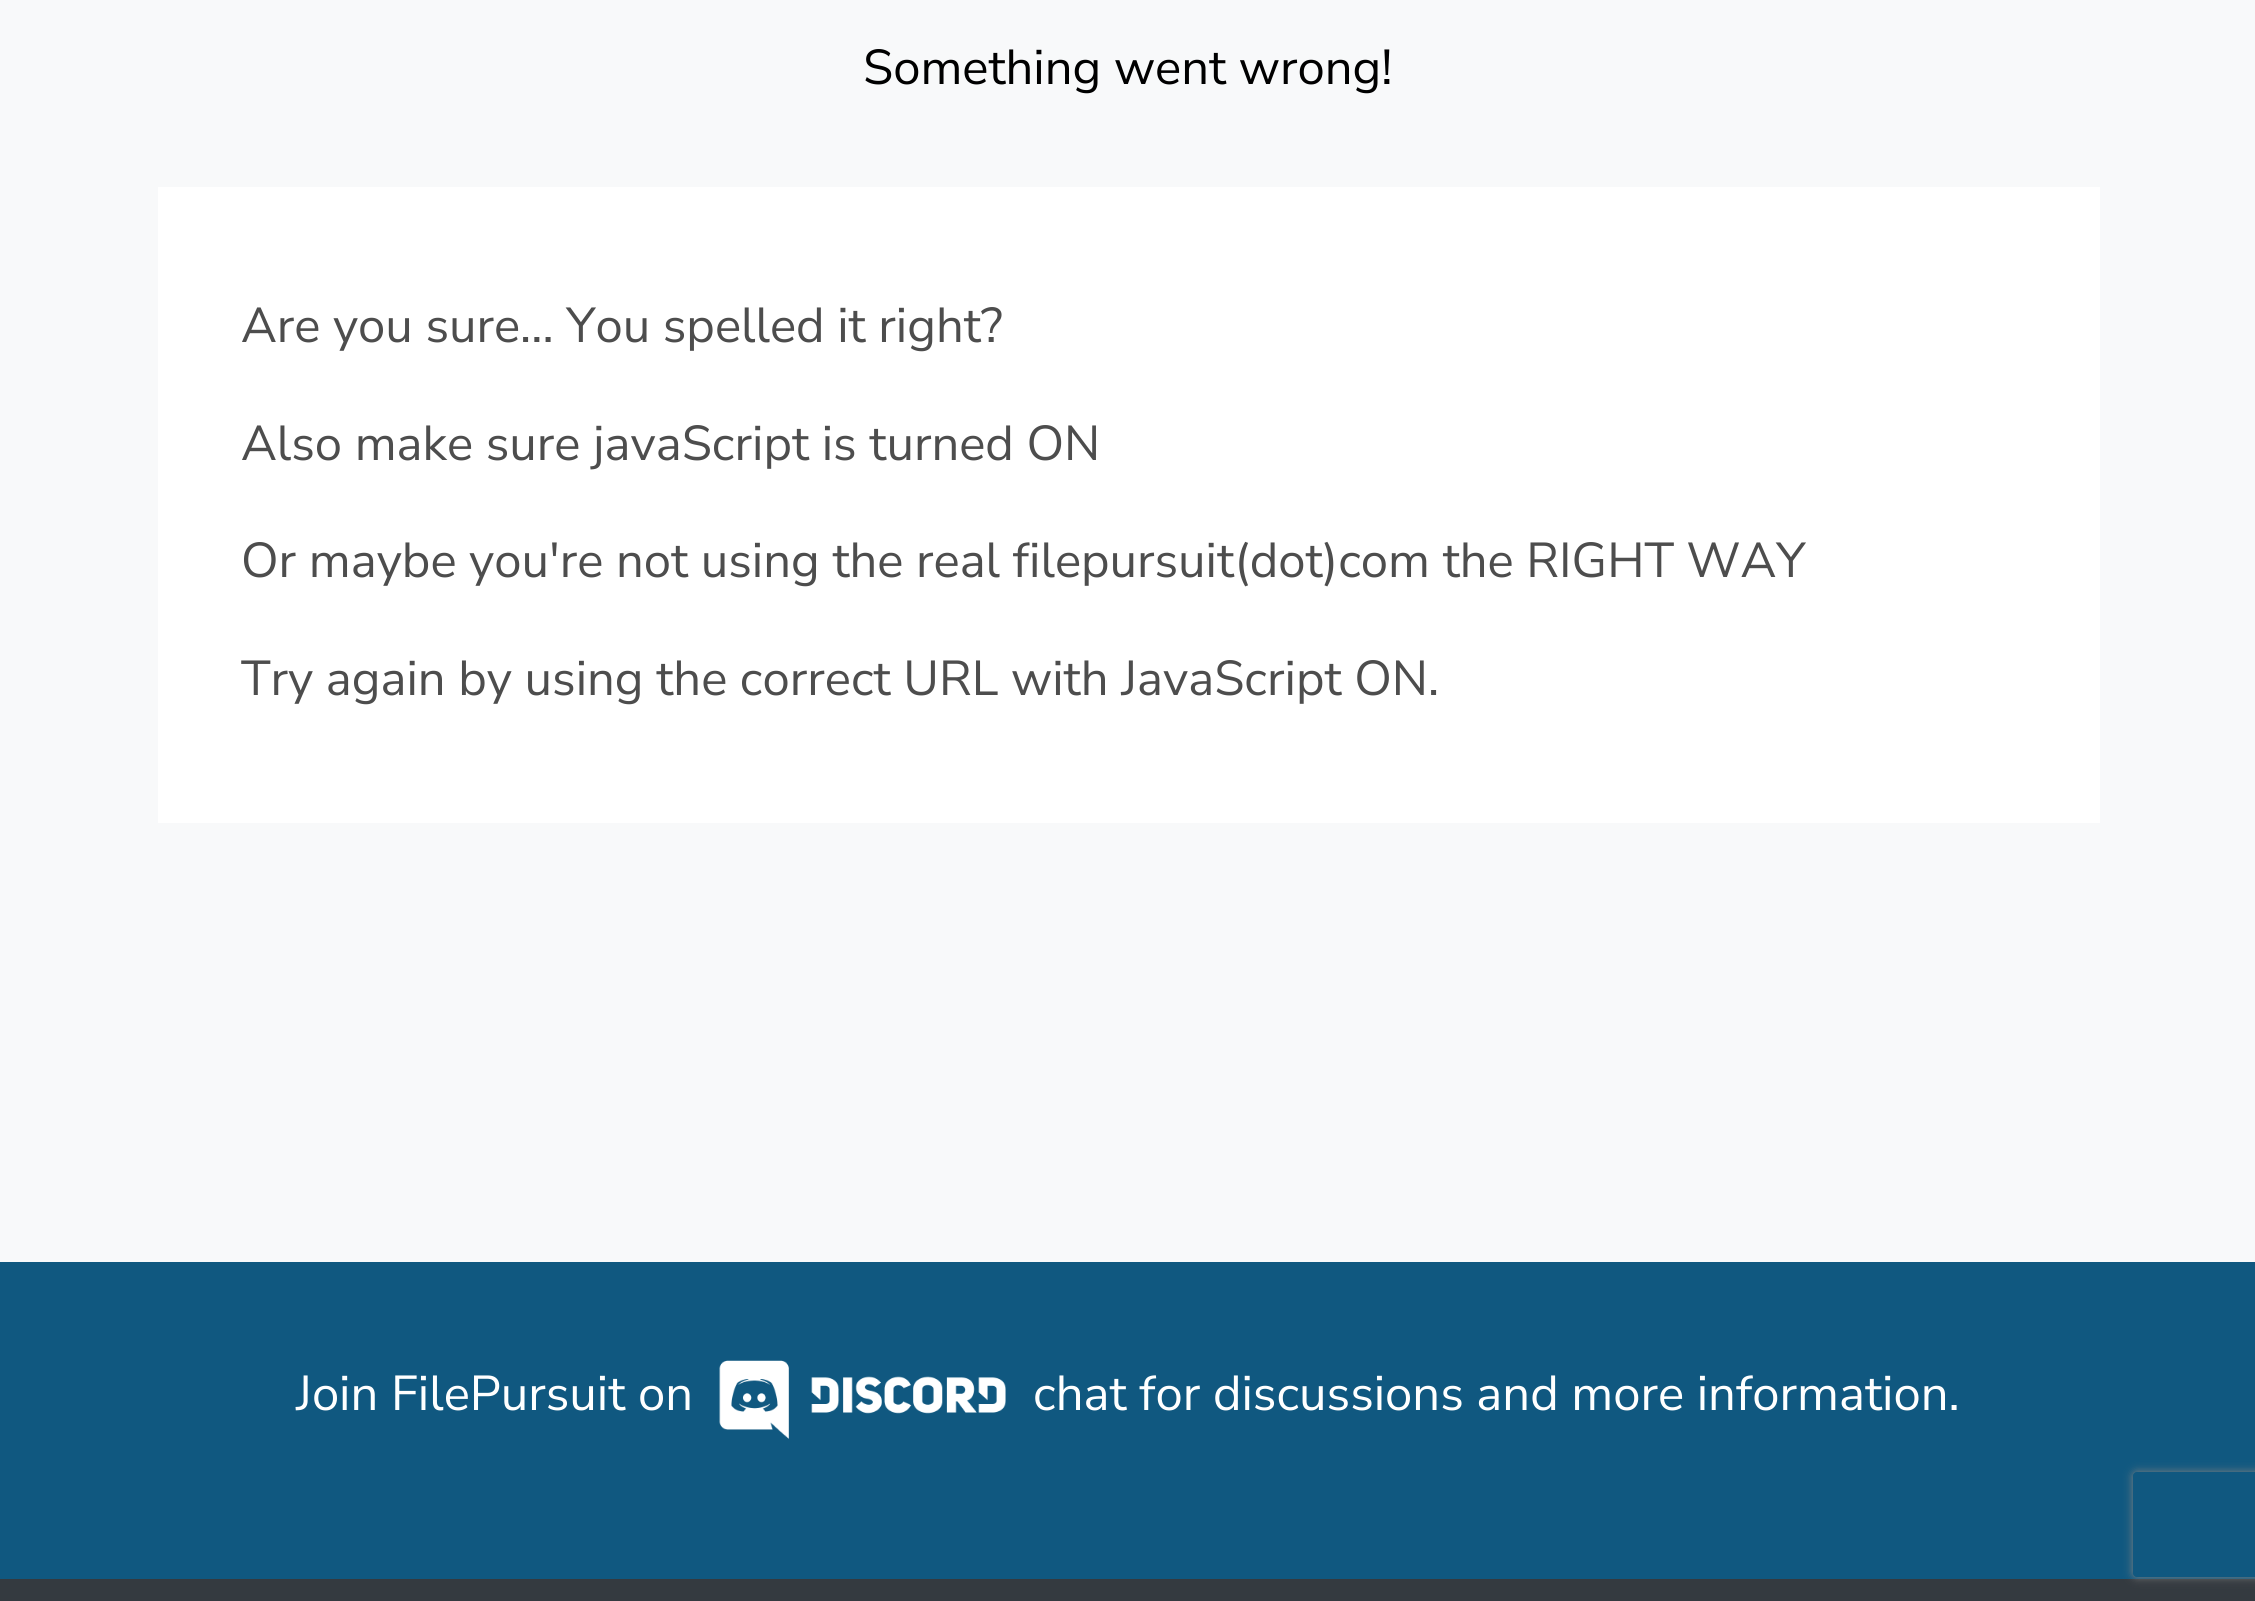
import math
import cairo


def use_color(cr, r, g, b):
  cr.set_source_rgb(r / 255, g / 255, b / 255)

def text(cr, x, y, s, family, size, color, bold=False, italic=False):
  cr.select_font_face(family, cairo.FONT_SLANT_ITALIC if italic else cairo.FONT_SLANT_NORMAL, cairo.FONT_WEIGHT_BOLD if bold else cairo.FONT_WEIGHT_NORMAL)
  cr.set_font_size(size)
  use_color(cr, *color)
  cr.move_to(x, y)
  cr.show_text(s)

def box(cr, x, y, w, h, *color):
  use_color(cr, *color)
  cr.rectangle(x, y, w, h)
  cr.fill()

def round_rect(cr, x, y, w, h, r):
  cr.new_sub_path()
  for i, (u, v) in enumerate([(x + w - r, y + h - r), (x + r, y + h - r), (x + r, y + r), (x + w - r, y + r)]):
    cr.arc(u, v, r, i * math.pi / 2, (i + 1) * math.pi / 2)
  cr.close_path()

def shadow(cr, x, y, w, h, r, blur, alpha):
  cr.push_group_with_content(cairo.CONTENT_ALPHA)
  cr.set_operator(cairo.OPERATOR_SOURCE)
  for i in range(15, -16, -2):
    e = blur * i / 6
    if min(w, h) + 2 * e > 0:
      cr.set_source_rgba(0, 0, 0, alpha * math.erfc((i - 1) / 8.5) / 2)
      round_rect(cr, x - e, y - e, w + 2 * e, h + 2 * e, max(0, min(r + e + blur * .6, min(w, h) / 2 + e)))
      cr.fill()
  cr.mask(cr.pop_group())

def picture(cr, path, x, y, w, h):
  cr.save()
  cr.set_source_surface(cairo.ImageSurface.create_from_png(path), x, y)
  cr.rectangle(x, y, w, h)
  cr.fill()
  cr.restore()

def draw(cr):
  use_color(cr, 248, 249, 250)
  cr.paint()
  box(cr, 158, 187, 1942, 636, 255, 255, 255)
  box(cr, 0, 1262, 2255, 317, 16, 88, 128)
  picture(cr, "img_01.png", 719, 1360, 287, 79)
  box(cr, 0, 1579, 2255, 22, 52, 58, 64)
  cr.save()
  cr.set_fill_rule(cairo.FILL_RULE_EVEN_ODD)
  cr.new_path()
  cr.move_to(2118, 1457)
  cr.line_to(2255, 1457)
  cr.line_to(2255, 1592)
  cr.line_to(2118, 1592)
  cr.close_path()
  cr.move_to(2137, 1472)
  cr.line_to(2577, 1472)
  cr.curve_to(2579, 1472, 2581, 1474, 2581, 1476)
  cr.line_to(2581, 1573)
  cr.curve_to(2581, 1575, 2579, 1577, 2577, 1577)
  cr.line_to(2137, 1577)
  cr.curve_to(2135, 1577, 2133, 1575, 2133, 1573)
  cr.line_to(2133, 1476)
  cr.curve_to(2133, 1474, 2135, 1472, 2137, 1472)
  cr.close_path()
  cr.clip()
  use_color(cr, 128, 128, 128)
  shadow(cr, 2133, 1472, 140, 105, 4, 4.5, 1)
  cr.restore()
  text(cr, 863, 84, "Something went wrong!", "Nunito Sans", 49, (0, 0, 0))
  text(cr, 241, 342, "Are you sure... You spelled it right?", "Nunito Sans", 49, (77, 77, 77))
  text(cr, 241, 460, "Also make sure javaScript is turned ON", "Nunito Sans", 49, (77, 77, 77))
  text(cr, 241, 577, "Or maybe you're not using the real filepursuit(dot)com the RIGHT WAY", "Nunito Sans", 49, (77, 77, 77))
  text(cr, 241, 695, "Try again by using the correct URL with JavaScript ON.", "Nunito Sans", 49, (77, 77, 77))
  text(cr, 296, 1410, "Join FilePursuit on", "Nunito Sans", 49, (255, 255, 255))
  text(cr, 1033, 1410, "chat for discussions and more information.", "Nunito Sans", 49, (255, 255, 255))


surface = cairo.ImageSurface(cairo.FORMAT_RGB24, 2255, 1601)
cr = cairo.Context(surface)
options = cairo.FontOptions()
options.set_hint_metrics(cairo.HINT_METRICS_OFF)
options.set_hint_style(cairo.HINT_STYLE_NONE)
cr.set_font_options(options)
cr.set_miter_limit(4)
draw(cr)
surface.write_to_png("out.png")
